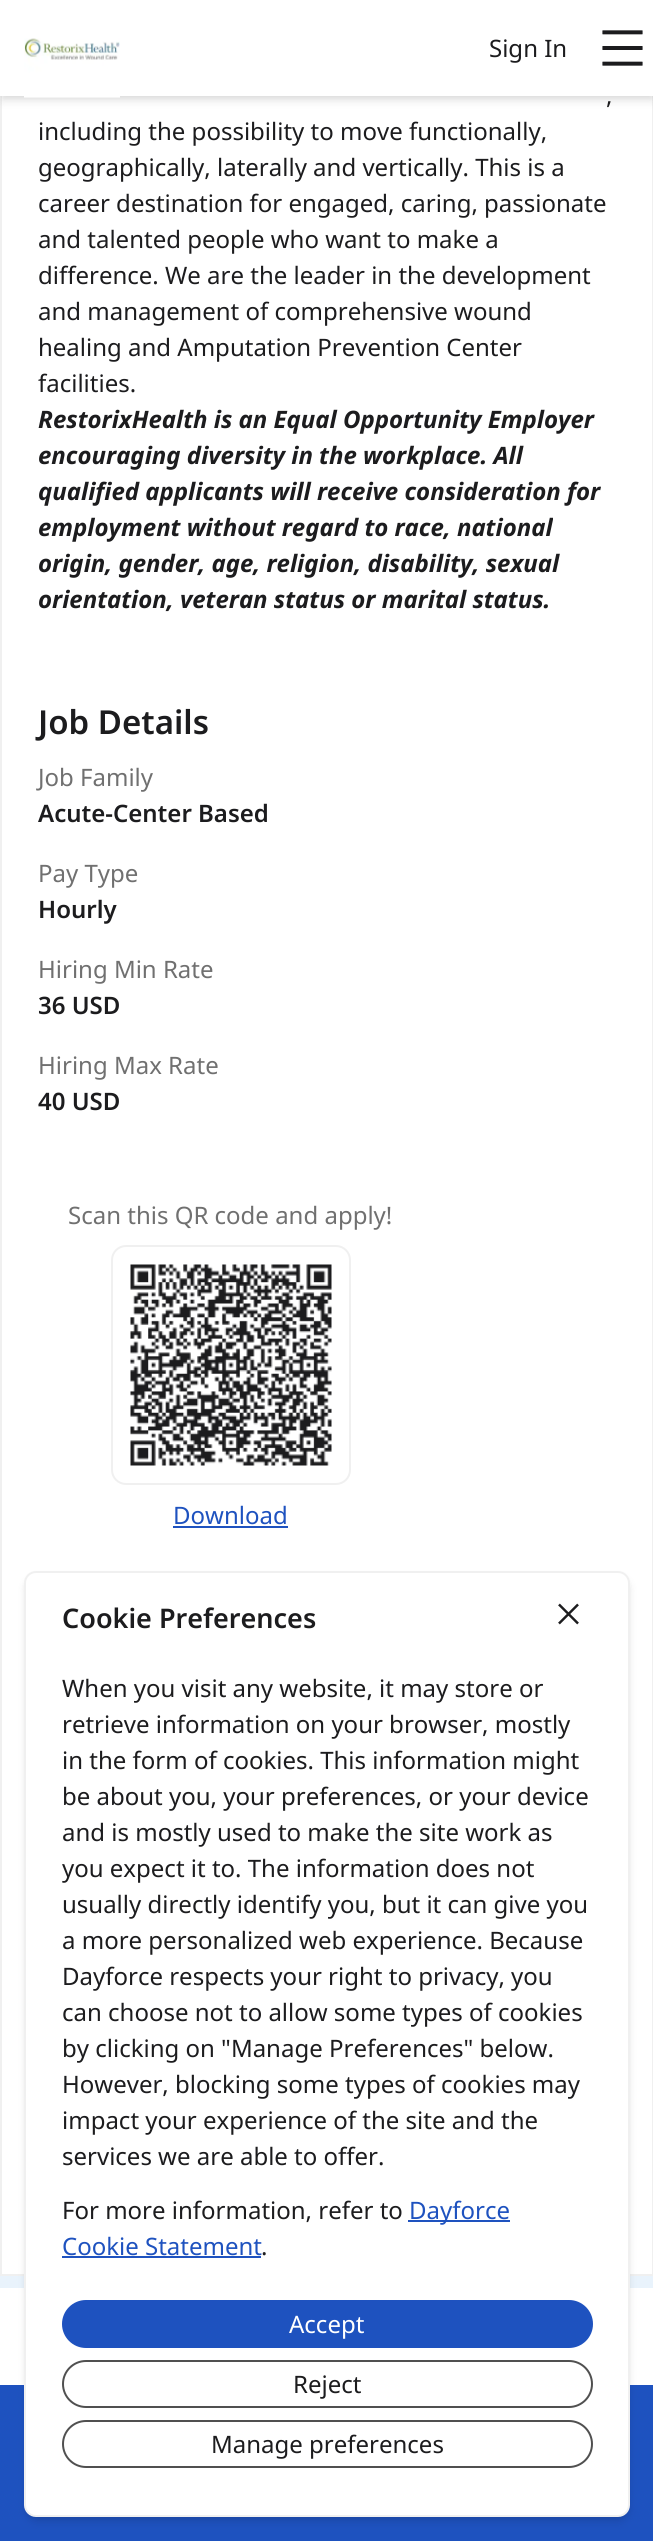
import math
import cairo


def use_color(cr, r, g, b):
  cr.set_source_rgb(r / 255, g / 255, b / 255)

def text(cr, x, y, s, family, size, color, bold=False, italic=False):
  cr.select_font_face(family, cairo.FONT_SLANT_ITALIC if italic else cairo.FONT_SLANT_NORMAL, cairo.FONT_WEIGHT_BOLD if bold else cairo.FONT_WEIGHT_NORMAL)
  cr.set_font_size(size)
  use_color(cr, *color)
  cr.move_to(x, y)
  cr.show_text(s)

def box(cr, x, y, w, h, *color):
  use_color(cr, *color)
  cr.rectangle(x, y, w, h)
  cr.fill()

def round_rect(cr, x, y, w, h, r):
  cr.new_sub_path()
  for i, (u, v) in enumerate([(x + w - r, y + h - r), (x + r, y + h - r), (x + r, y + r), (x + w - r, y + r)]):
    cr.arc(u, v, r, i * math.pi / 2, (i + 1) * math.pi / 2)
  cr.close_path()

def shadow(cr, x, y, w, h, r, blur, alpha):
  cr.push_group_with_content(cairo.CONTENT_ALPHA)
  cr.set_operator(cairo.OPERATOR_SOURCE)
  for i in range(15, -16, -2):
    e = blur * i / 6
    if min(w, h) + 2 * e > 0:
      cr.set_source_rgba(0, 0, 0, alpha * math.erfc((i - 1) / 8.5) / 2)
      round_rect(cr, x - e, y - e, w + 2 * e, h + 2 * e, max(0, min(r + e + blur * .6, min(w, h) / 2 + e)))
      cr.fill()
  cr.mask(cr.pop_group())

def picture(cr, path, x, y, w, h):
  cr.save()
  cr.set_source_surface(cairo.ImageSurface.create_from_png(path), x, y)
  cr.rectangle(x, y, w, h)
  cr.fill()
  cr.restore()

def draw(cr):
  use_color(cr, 255, 255, 255)
  cr.paint()
  cr.rectangle(1, -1, 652, 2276)
  use_color(cr, 240, 240, 240)
  cr.stroke()
  use_color(cr, 0, 0, 0)
  shadow(cr, 3, 6, 648, 90, 0, 3, 0.1)
  shadow(cr, 2, 8, 651, 93, 0, 4.5, 0.1)
  box(cr, 0, 0, 653, 96, 255, 255, 255)
  picture(cr, "img_01.png", 24, 38, 96, 60)
  picture(cr, "img_02.png", 602, 30, 41, 36)
  box(cr, 0, 2276, 653, 12, 233, 243, 252)
  round_rect(cr, 112, 1246, 238, 238, 14)
  use_color(cr, 240, 240, 240)
  cr.stroke()
  picture(cr, "img_03.png", 130, 1264, 202, 202)
  box(cr, 173, 1526, 115, 2, 30, 82, 191)
  box(cr, 0, 2385, 653, 156, 30, 82, 191)
  use_color(cr, 0, 0, 0)
  shadow(cr, 27, 1577, 600, 940, 9, 3, 0.1)
  shadow(cr, 26, 1578, 603, 944, 11, 4.5, 0.1)
  use_color(cr, 255, 255, 255)
  round_rect(cr, 25, 1572, 604, 944, 11)
  cr.fill_preserve()
  use_color(cr, 240, 240, 240)
  cr.stroke()
  picture(cr, "img_04.png", 558, 1603, 21, 22)
  box(cr, 408, 2220, 102, 2, 30, 82, 191)
  box(cr, 62, 2256, 199, 2, 30, 82, 191)
  round_rect(cr, 62, 2300, 531, 48, 24)
  cr.fill()
  round_rect(cr, 63, 2361, 529, 46, 23)
  use_color(cr, 80, 80, 80)
  cr.stroke()
  round_rect(cr, 63, 2421, 529, 46, 23)
  cr.stroke()
  text(cr, 489, 57, "Sign In", "Noto Sans", 24, (28, 28, 30))
  text(cr, 606, 104, ",", "Noto Sans", 24, (28, 28, 30))
  text(cr, 38, 140, "including the possibility to move functionally,", "Noto Sans", 24, (28, 28, 30))
  text(cr, 38, 176, "geographically, laterally and vertically. This is a", "Noto Sans", 24, (28, 28, 30))
  text(cr, 38, 212, "career destination for engaged, caring, passionate", "Noto Sans", 24, (28, 28, 30))
  text(cr, 38, 248, "and talented people who want to make a", "Noto Sans", 24, (28, 28, 30))
  text(cr, 38, 284, "difference. We are the leader in the development", "Noto Sans", 24, (28, 28, 30))
  text(cr, 38, 320, "and management of comprehensive wound", "Noto Sans", 24, (28, 28, 30))
  text(cr, 38, 356, "healing and Amputation Prevention Center", "Noto Sans", 24, (28, 28, 30))
  text(cr, 38, 392, "facilities.", "Noto Sans", 24, (28, 28, 30))
  text(cr, 38, 428, "RestorixHealth is an Equal Opportunity Employer", "Noto Sans", 24, (28, 28, 30), bold=True, italic=True)
  text(cr, 38, 464, "encouraging diversity in the workplace. All", "Noto Sans", 24, (28, 28, 30), bold=True, italic=True)
  text(cr, 38, 500, "qualified applicants will receive consideration for", "Noto Sans", 24, (28, 28, 30), bold=True, italic=True)
  text(cr, 38, 536, "employment without regard to race, national", "Noto Sans", 24, (28, 28, 30), bold=True, italic=True)
  text(cr, 38, 572, "origin, gender, age, religion, disability, sexual", "Noto Sans", 24, (28, 28, 30), bold=True, italic=True)
  text(cr, 38, 608, "orientation, veteran status or marital status.", "Noto Sans", 24, (28, 28, 30), bold=True, italic=True)
  text(cr, 38, 734, "Job Details", "Noto Sans SemiBold", 33, (28, 28, 30))
  text(cr, 38, 786, "Job Family", "Noto Sans", 24, (112, 112, 112))
  text(cr, 38, 822, "Acute-Center Based", "Noto Sans SemiBold", 24, (28, 28, 30))
  text(cr, 38, 882, "Pay Type", "Noto Sans", 24, (112, 112, 112))
  text(cr, 38, 918, "Hourly", "Noto Sans SemiBold", 24, (28, 28, 30))
  text(cr, 38, 978, "Hiring Min Rate", "Noto Sans", 24, (112, 112, 112))
  text(cr, 38, 1014, "36 USD", "Noto Sans SemiBold", 24, (28, 28, 30))
  text(cr, 38, 1074, "Hiring Max Rate", "Noto Sans", 24, (112, 112, 112))
  text(cr, 38, 1110, "40 USD", "Noto Sans SemiBold", 24, (28, 28, 30))
  text(cr, 68, 1224, "Scan this QR code and apply!", "Noto Sans", 24, (112, 112, 112))
  text(cr, 173, 1524, "Download", "Noto Sans", 24, (30, 82, 191))
  text(cr, 62, 1628, "Cookie Preferences", "Noto Sans SemiBold", 27, (28, 28, 30))
  text(cr, 62, 1697, "When you visit any website, it may store or", "Noto Sans", 24, (28, 28, 30))
  text(cr, 62, 1733, "retrieve information on your browser, mostly", "Noto Sans", 24, (28, 28, 30))
  text(cr, 62, 1769, "in the form of cookies. This information might", "Noto Sans", 24, (28, 28, 30))
  text(cr, 62, 1805, "be about you, your preferences, or your device", "Noto Sans", 24, (28, 28, 30))
  text(cr, 62, 1841, "and is mostly used to make the site work as", "Noto Sans", 24, (28, 28, 30))
  text(cr, 62, 1877, "you expect it to. The information does not", "Noto Sans", 24, (28, 28, 30))
  text(cr, 62, 1913, "usually directly identify you, but it can give you", "Noto Sans", 24, (28, 28, 30))
  text(cr, 62, 1949, "a more personalized web experience. Because", "Noto Sans", 24, (28, 28, 30))
  text(cr, 62, 1985, "Dayforce respects your right to privacy, you", "Noto Sans", 24, (28, 28, 30))
  text(cr, 62, 2021, "can choose not to allow some types of cookies", "Noto Sans", 24, (28, 28, 30))
  text(cr, 62, 2057, "by clicking on \"Manage Preferences\" below.", "Noto Sans", 24, (28, 28, 30))
  text(cr, 62, 2093, "However, blocking some types of cookies may", "Noto Sans", 24, (28, 28, 30))
  text(cr, 62, 2129, "impact your experience of the site and the", "Noto Sans", 24, (28, 28, 30))
  text(cr, 62, 2165, "services we are able to offer.", "Noto Sans", 24, (28, 28, 30))
  text(cr, 62, 2219, "For more information, refer to", "Noto Sans", 24, (28, 28, 30))
  text(cr, 409, 2219, "Dayforce", "Noto Sans", 24, (30, 82, 191))
  text(cr, 62, 2255, "Cookie Statement", "Noto Sans", 24, (30, 82, 191))
  text(cr, 261, 2255, ".", "Noto Sans", 24, (28, 28, 30))
  text(cr, 289, 2333, "Accept", "Noto Sans", 24, (255, 255, 255))
  text(cr, 293, 2393, "Reject", "Noto Sans", 24, (28, 28, 30))
  text(cr, 211, 2453, "Manage preferences", "Noto Sans", 24, (28, 28, 30))


surface = cairo.ImageSurface(cairo.FORMAT_RGB24, 653, 2541)
cr = cairo.Context(surface)
options = cairo.FontOptions()
options.set_hint_metrics(cairo.HINT_METRICS_OFF)
options.set_hint_style(cairo.HINT_STYLE_NONE)
cr.set_font_options(options)
cr.set_miter_limit(4)
draw(cr)
surface.write_to_png("out.png")
